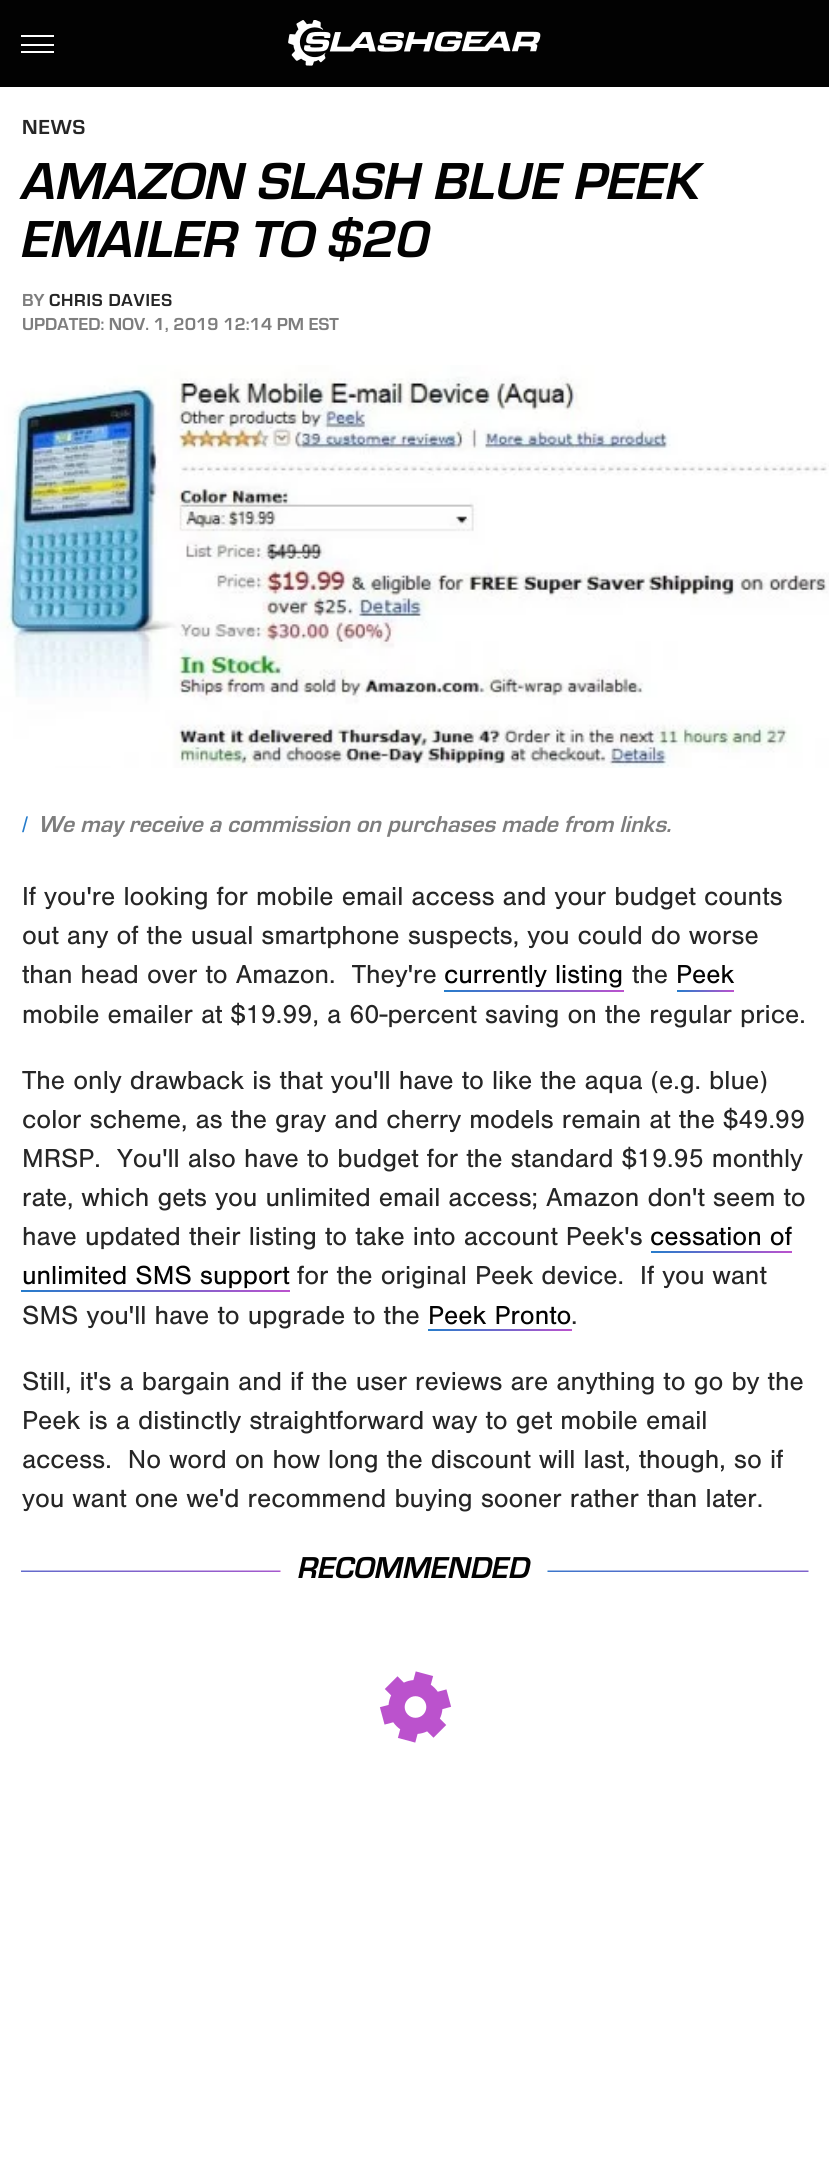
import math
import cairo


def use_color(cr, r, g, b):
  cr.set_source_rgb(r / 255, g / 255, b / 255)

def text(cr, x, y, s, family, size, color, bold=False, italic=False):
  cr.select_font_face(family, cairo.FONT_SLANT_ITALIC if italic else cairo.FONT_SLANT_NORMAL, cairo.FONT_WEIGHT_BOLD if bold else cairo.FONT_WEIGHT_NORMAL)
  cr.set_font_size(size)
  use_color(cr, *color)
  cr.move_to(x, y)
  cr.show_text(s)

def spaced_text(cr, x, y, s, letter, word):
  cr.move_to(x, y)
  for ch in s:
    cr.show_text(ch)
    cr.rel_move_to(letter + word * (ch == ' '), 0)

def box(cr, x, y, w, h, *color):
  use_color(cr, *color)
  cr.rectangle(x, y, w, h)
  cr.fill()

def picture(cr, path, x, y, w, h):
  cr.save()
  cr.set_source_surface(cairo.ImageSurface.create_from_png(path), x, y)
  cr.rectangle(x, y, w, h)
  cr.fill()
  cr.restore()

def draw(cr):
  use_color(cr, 255, 255, 255)
  cr.paint()
  box(cr, 0, 0, 829, 87, 2, 2, 2)
  box(cr, 21, 35, 33, 2, 255, 255, 255)
  box(cr, 21, 44, 33, 2, 255, 255, 255)
  box(cr, 21, 51, 33, 2, 255, 255, 255)
  picture(cr, "img_01.png", 288, 20, 253, 46)
  picture(cr, "img_02.png", 0, 365, 829, 403)
  gradient = cairo.LinearGradient(444, 991, 624, 991)
  gradient.add_color_stop_rgba(0, 0.149, 0.486, 0.796, 1)
  gradient.add_color_stop_rgba(1, 0.733, 0.322, 0.804, 1)
  cr.set_source(gradient)
  cr.rectangle(444, 990, 180, 2)
  cr.fill()
  gradient = cairo.LinearGradient(677, 991, 734, 991)
  gradient.add_color_stop_rgba(0, 0.149, 0.486, 0.796, 1)
  gradient.add_color_stop_rgba(1, 0.733, 0.322, 0.804, 1)
  cr.set_source(gradient)
  cr.rectangle(677, 990, 57, 2)
  cr.fill()
  gradient = cairo.LinearGradient(651, 1252, 792, 1252)
  gradient.add_color_stop_rgba(0, 0.149, 0.486, 0.796, 1)
  gradient.add_color_stop_rgba(1, 0.733, 0.322, 0.804, 1)
  cr.set_source(gradient)
  cr.rectangle(651, 1251, 141, 2)
  cr.fill()
  gradient = cairo.LinearGradient(21, 1291, 290, 1291)
  gradient.add_color_stop_rgba(0, 0.149, 0.486, 0.796, 1)
  gradient.add_color_stop_rgba(1, 0.733, 0.322, 0.804, 1)
  cr.set_source(gradient)
  cr.rectangle(21, 1290, 269, 2)
  cr.fill()
  gradient = cairo.LinearGradient(428, 1330, 572, 1330)
  gradient.add_color_stop_rgba(0, 0.149, 0.486, 0.796, 1)
  gradient.add_color_stop_rgba(1, 0.733, 0.322, 0.804, 1)
  cr.set_source(gradient)
  cr.rectangle(428, 1329, 144, 2)
  cr.fill()
  picture(cr, "img_03.png", 21, 1570, 260, 2)
  picture(cr, "img_04.png", 547, 1570, 262, 2)
  picture(cr, "img_05.png", 379, 1671, 73, 72)
  cr.select_font_face("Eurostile", cairo.FONT_SLANT_NORMAL, cairo.FONT_WEIGHT_BOLD)
  cr.set_font_size(19)
  use_color(cr, 38, 38, 38)
  spaced_text(cr, 22, 134, "NEWS", 0.75, 0)
  text(cr, 22, 199, "AMAZON SLASH BLUE PEEK", "Eurostile", 48.6, (2, 2, 2), bold=True, italic=True)
  text(cr, 22, 257, "EMAILER TO $20", "Eurostile", 48.6, (2, 2, 2), bold=True, italic=True)
  text(cr, 22, 306, "BY", "Eurostile", 16.25, (126, 126, 126), bold=True)
  use_color(cr, 38, 38, 38)
  spaced_text(cr, 49, 306, "CHRIS DAVIES", 0.75, 0)
  text(cr, 22, 330, "UPDATED: NOV. 1, 2019 12:14 PM EST", "Eurostile", 16.25, (126, 126, 126), bold=True)
  text(cr, 22, 832, "/", "Liberation Sans", 21.6, (38, 124, 203))
  text(cr, 38, 832, "We may receive a commission on purchases made from links.", "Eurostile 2", 21.6, (126, 126, 126), bold=True, italic=True)
  text(cr, 22, 905, "If you're looking for mobile email access and your budget counts", "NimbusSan", 27, (38, 38, 38))
  text(cr, 22, 944, "out any of the usual smartphone suspects, you could do worse", "NimbusSan", 27, (38, 38, 38))
  text(cr, 22, 983, "than head over to Amazon.  They're", "NimbusSan", 27, (38, 38, 38))
  text(cr, 444, 983, "currently listing", "NimbusSan", 27, (2, 2, 2))
  text(cr, 632, 983, "the", "NimbusSan", 27, (38, 38, 38))
  text(cr, 676, 983, "Peek", "NimbusSan", 27, (2, 2, 2))
  text(cr, 22, 1023, "mobile emailer at $19.99, a 60-percent saving on the regular price.", "NimbusSan", 27, (38, 38, 38))
  text(cr, 22, 1089, "The only drawback is that you'll have to like the aqua (e.g. blue)", "NimbusSan", 27, (38, 38, 38))
  text(cr, 22, 1128, "color scheme, as the gray and cherry models remain at the $49.99", "NimbusSan", 27, (38, 38, 38))
  text(cr, 22, 1167, "MRSP.  You'll also have to budget for the standard $19.95 monthly", "NimbusSan", 27, (38, 38, 38))
  text(cr, 22, 1206, "rate, which gets you unlimited email access; Amazon don't seem to", "NimbusSan", 27, (38, 38, 38))
  text(cr, 22, 1245, "have updated their listing to take into account Peek's", "NimbusSan", 27, (38, 38, 38))
  text(cr, 650, 1245, "cessation of", "NimbusSan", 27, (2, 2, 2))
  text(cr, 22, 1284, "unlimited SMS support", "NimbusSan", 27, (2, 2, 2))
  text(cr, 297, 1284, "for the original Peek device.  If you want", "NimbusSan", 27, (38, 38, 38))
  text(cr, 22, 1324, "SMS you'll have to upgrade to the", "NimbusSan", 27, (38, 38, 38))
  text(cr, 428, 1324, "Peek Pronto", "NimbusSan", 27, (2, 2, 2))
  text(cr, 571, 1324, ".", "NimbusSan", 27, (38, 38, 38))
  text(cr, 22, 1390, "Still, it's a bargain and if the user reviews are anything to go by the", "NimbusSan", 27, (38, 38, 38))
  text(cr, 22, 1429, "Peek is a distinctly straightforward way to get mobile email", "NimbusSan", 27, (38, 38, 38))
  text(cr, 22, 1468, "access.  No word on how long the discount will last, though, so if", "NimbusSan", 27, (38, 38, 38))
  text(cr, 22, 1507, "you want one we'd recommend buying sooner rather than later.", "NimbusSan", 27, (38, 38, 38))
  text(cr, 298, 1578, "RECOMMENDED", "Eurostile", 28.25, (2, 2, 2), bold=True, italic=True)


surface = cairo.ImageSurface(cairo.FORMAT_RGB24, 829, 2184)
cr = cairo.Context(surface)
options = cairo.FontOptions()
options.set_hint_metrics(cairo.HINT_METRICS_OFF)
options.set_hint_style(cairo.HINT_STYLE_NONE)
cr.set_font_options(options)
cr.set_miter_limit(4)
draw(cr)
surface.write_to_png("out.png")
